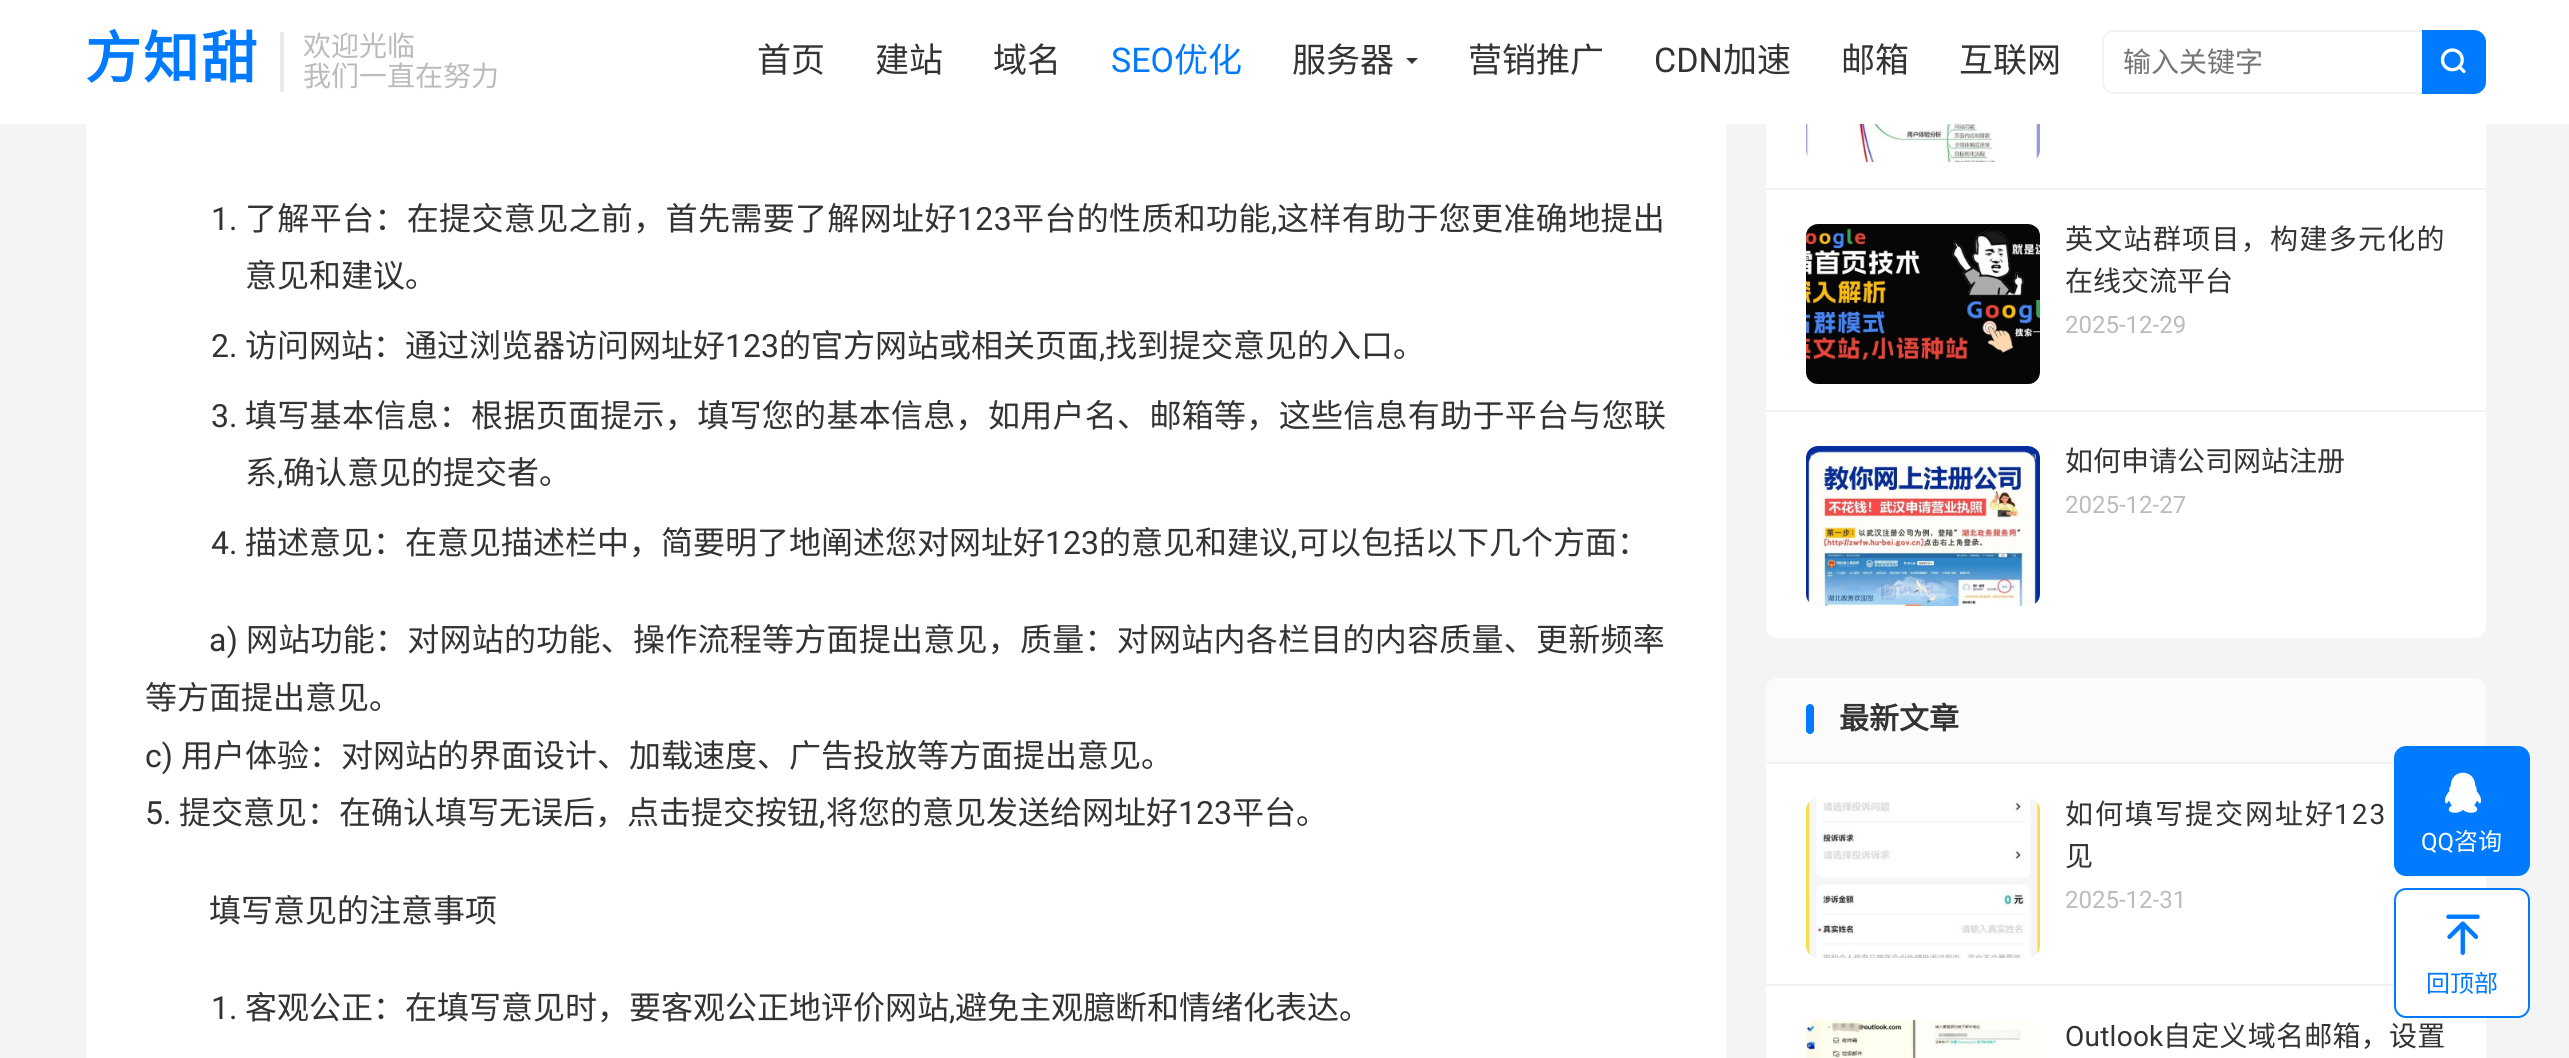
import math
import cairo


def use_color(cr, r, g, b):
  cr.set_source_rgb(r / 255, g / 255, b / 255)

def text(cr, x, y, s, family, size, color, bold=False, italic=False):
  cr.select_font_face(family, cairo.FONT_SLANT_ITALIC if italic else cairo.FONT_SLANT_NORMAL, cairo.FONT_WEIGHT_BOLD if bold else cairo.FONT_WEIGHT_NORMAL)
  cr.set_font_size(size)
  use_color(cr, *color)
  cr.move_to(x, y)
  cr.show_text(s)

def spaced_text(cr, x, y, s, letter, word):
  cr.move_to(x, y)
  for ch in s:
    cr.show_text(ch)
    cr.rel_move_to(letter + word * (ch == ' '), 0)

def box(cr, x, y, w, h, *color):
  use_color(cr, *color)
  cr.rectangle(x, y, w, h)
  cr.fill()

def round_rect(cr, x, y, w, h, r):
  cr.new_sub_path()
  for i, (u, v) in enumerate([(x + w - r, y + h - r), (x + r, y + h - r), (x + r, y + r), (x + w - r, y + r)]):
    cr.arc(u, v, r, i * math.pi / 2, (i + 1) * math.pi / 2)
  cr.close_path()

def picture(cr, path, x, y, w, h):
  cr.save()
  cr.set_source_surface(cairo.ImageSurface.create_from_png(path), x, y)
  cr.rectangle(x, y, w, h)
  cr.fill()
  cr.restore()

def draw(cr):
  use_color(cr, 244, 244, 244)
  cr.paint()
  use_color(cr, 255, 255, 255)
  round_rect(cr, 1766, -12, 720, 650, 12)
  cr.fill()
  box(cr, 0, 0, 2569, 124, 255, 255, 255)
  box(cr, 280, 32, 4, 60, 234, 234, 234)
  use_color(cr, 51, 51, 51)
  cr.new_path()
  cr.move_to(1406, 58)
  cr.line_to(1418, 58)
  cr.line_to(1412, 64)
  cr.close_path()
  cr.fill()
  use_color(cr, 243, 243, 243)
  cr.set_fill_rule(cairo.FILL_RULE_EVEN_ODD)
  cr.new_path()
  cr.move_to(2114, 30)
  cr.line_to(2422, 30)
  cr.line_to(2422, 94)
  cr.line_to(2114, 94)
  cr.curve_to(2107, 94, 2102, 89, 2102, 82)
  cr.line_to(2102, 42)
  cr.curve_to(2102, 35, 2107, 30, 2114, 30)
  cr.close_path()
  cr.move_to(2114, 32)
  cr.line_to(2422, 32)
  cr.line_to(2422, 92)
  cr.line_to(2114, 92)
  cr.curve_to(2108, 92, 2104, 88, 2104, 82)
  cr.line_to(2104, 42)
  cr.curve_to(2104, 36, 2108, 32, 2114, 32)
  cr.close_path()
  cr.fill()
  use_color(cr, 0, 123, 255)
  cr.new_path()
  cr.move_to(2422, 30)
  cr.line_to(2474, 30)
  cr.curve_to(2480.5, 30, 2486, 35.5, 2486, 42)
  cr.line_to(2486, 82)
  cr.curve_to(2486, 88.5, 2480.5, 94, 2474, 94)
  cr.line_to(2422, 94)
  cr.close_path()
  cr.fill()
  picture(cr, "img_01.png", 2440, 48, 26, 26)
  box(cr, 86, 124, 1640, 934, 255, 255, 255)
  box(cr, 1766, 188, 720, 2, 243, 243, 243)
  picture(cr, "img_02.png", 1806, 124, 234, 38)
  box(cr, 1766, 410, 720, 2, 243, 243, 243)
  picture(cr, "img_03.png", 1806, 224, 234, 160)
  picture(cr, "img_04.png", 1806, 446, 234, 160)
  use_color(cr, 255, 255, 255)
  round_rect(cr, 1766, 678, 720, 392, 12)
  cr.fill()
  use_color(cr, 251, 251, 251)
  cr.new_path()
  cr.move_to(1778, 678)
  cr.line_to(2474, 678)
  cr.curve_to(2480.5, 678, 2486, 683.5, 2486, 690)
  cr.line_to(2486, 764)
  cr.line_to(1766, 764)
  cr.line_to(1766, 690)
  cr.curve_to(1766, 683.5, 1771.5, 678, 1778, 678)
  cr.close_path()
  cr.fill()
  box(cr, 1766, 762, 628, 2, 243, 243, 243)
  use_color(cr, 0, 123, 255)
  round_rect(cr, 1806, 704, 8, 30, 4)
  cr.fill()
  box(cr, 1766, 984, 628, 2, 243, 243, 243)
  picture(cr, "img_05.png", 1806, 798, 234, 160)
  picture(cr, "img_06.png", 1806, 1020, 234, 38)
  use_color(cr, 0, 123, 255)
  round_rect(cr, 2395, 747, 134, 128, 11)
  cr.fill_preserve()
  cr.stroke()
  picture(cr, "img_07.png", 2445, 772, 36, 41)
  use_color(cr, 255, 255, 255)
  round_rect(cr, 2395, 889, 134, 128, 11)
  cr.fill_preserve()
  use_color(cr, 0, 123, 255)
  cr.stroke()
  picture(cr, "img_08.png", 2446, 914, 34, 41)
  cr.select_font_face("Noto Sans CJK SC", cairo.FONT_SLANT_NORMAL, cairo.FONT_WEIGHT_BOLD)
  cr.set_font_size(56)
  spaced_text(cr, 85, 78, "方知甜", 2, 0)
  text(cr, 303, 56, "欢迎光临", "Noto Sans CJK SC", 28, (187, 187, 187))
  text(cr, 303, 86, "我们一直在努力", "Noto Sans CJK SC", 28, (187, 187, 187))
  text(cr, 757, 72, "首页", "Noto Sans CJK SC", 34, (51, 51, 51))
  text(cr, 875, 72, "建站", "Noto Sans CJK SC", 34, (51, 51, 51))
  text(cr, 993, 72, "域名", "Noto Sans CJK SC", 34, (51, 51, 51))
  text(cr, 1111, 72, "SEO", "Roboto", 34, (0, 123, 255))
  text(cr, 1174, 72, "优化", "Noto Sans CJK SC", 34, (0, 123, 255))
  text(cr, 1292, 72, "服务器", "Noto Sans CJK SC", 34, (51, 51, 51))
  text(cr, 1468, 72, "营销推广", "Noto Sans CJK SC", 34, (51, 51, 51))
  text(cr, 1654, 72, "CDN", "Roboto", 34, (51, 51, 51))
  text(cr, 1723, 72, "加速", "Noto Sans CJK SC", 34, (51, 51, 51))
  text(cr, 1841, 72, "邮箱", "Noto Sans CJK SC", 34, (51, 51, 51))
  text(cr, 1959, 72, "互联网", "Noto Sans CJK SC", 34, (51, 51, 51))
  text(cr, 2123, 72, "输入关键字", "Noto Sans CJK SC", 28, (117, 117, 117))
  text(cr, 211, 230, "1.", "Roboto", 32, (51, 51, 51))
  cr.select_font_face("Noto Sans CJK SC")
  spaced_text(cr, 245, 230, "了解平台：在提交意见之前，首先需要了解网址好", 0.35, 0)
  cr.select_font_face("Roboto")
  spaced_text(cr, 957, 230, "123", 0.35, 0)
  cr.select_font_face("Noto Sans CJK SC")
  spaced_text(cr, 1012, 230, "平台的性质和功能", 0.35, 0)
  cr.select_font_face("Roboto")
  spaced_text(cr, 1271, 230, ",", 0.35, 0)
  cr.select_font_face("Noto Sans CJK SC")
  spaced_text(cr, 1277, 230, "这样有助于您更准确地提出", 0.35, 0)
  text(cr, 245, 287, "意见和建议。", "Noto Sans CJK SC", 32, (51, 51, 51))
  text(cr, 211, 357, "2.", "Roboto", 32, (51, 51, 51))
  text(cr, 245, 357, "访问网站：通过浏览器访问网址好", "Noto Sans CJK SC", 32, (51, 51, 51))
  text(cr, 725, 357, "123", "Roboto", 32, (51, 51, 51))
  text(cr, 779, 357, "的官方网站或相关页面", "Noto Sans CJK SC", 32, (51, 51, 51))
  text(cr, 1099, 357, ",", "Roboto", 32, (51, 51, 51))
  text(cr, 1105, 357, "找到提交意见的入口。", "Noto Sans CJK SC", 32, (51, 51, 51))
  text(cr, 211, 427, "3.", "Roboto", 32, (51, 51, 51))
  cr.select_font_face("Noto Sans CJK SC")
  spaced_text(cr, 245, 427, "填写基本信息：根据页面提示，填写您的基本信息，如用户名、邮箱等，这些信息有助于平台与您联", 0.3, 0)
  text(cr, 245, 484, "系", "Noto Sans CJK SC", 32, (51, 51, 51))
  text(cr, 277, 484, ",", "Roboto", 32, (51, 51, 51))
  text(cr, 283, 484, "确认意见的提交者。", "Noto Sans CJK SC", 32, (51, 51, 51))
  text(cr, 211, 554, "4.", "Roboto", 32, (51, 51, 51))
  text(cr, 245, 554, "描述意见：在意见描述栏中，简要明了地阐述您对网址好", "Noto Sans CJK SC", 32, (51, 51, 51))
  text(cr, 1045, 554, "123", "Roboto", 32, (51, 51, 51))
  text(cr, 1099, 554, "的意见和建议", "Noto Sans CJK SC", 32, (51, 51, 51))
  text(cr, 1291, 554, ",", "Roboto", 32, (51, 51, 51))
  text(cr, 1297, 554, "可以包括以下几个方面：", "Noto Sans CJK SC", 32, (51, 51, 51))
  cr.select_font_face("Roboto")
  spaced_text(cr, 209, 651, "a)", 0.25, 0)
  cr.select_font_face("Noto Sans CJK SC")
  spaced_text(cr, 246, 651, "网站功能：对网站的功能、操作流程等方面提出意见，质量：对网站内各栏目的内容质量、更新频率", 0.25, 0)
  text(cr, 145, 709, "等方面提出意见。", "Noto Sans CJK SC", 32, (51, 51, 51))
  text(cr, 145, 767, "c)", "Roboto", 32, (51, 51, 51))
  text(cr, 181, 767, "用户体验：对网站的界面设计、加载速度、广告投放等方面提出意见。", "Noto Sans CJK SC", 32, (51, 51, 51))
  text(cr, 145, 824, "5.", "Roboto", 32, (51, 51, 51))
  text(cr, 179, 824, "提交意见：在确认填写无误后，点击提交按钮", "Noto Sans CJK SC", 32, (51, 51, 51))
  text(cr, 819, 824, ",", "Roboto", 32, (51, 51, 51))
  text(cr, 826, 824, "将您的意见发送给网址好", "Noto Sans CJK SC", 32, (51, 51, 51))
  text(cr, 1178, 824, "123", "Roboto", 32, (51, 51, 51))
  text(cr, 1232, 824, "平台。", "Noto Sans CJK SC", 32, (51, 51, 51))
  text(cr, 209, 922, "填写意见的注意事项", "Noto Sans CJK SC", 32, (51, 51, 51))
  text(cr, 211, 1019, "1.", "Roboto", 32, (51, 51, 51))
  text(cr, 245, 1019, "客观公正：在填写意见时，要客观公正地评价网站", "Noto Sans CJK SC", 32, (51, 51, 51))
  text(cr, 949, 1019, ",", "Roboto", 32, (51, 51, 51))
  text(cr, 955, 1019, "避免主观臆断和情绪化表达。", "Noto Sans CJK SC", 32, (51, 51, 51))
  cr.set_font_size(28)
  spaced_text(cr, 2065, 249, "英文站群项目，构建多元化的", 1.3, 0)
  text(cr, 2065, 291, "在线交流平台", "Noto Sans CJK SC", 28, (51, 51, 51))
  text(cr, 2065, 333, "2025-12-29", "Roboto", 24, (187, 187, 187))
  text(cr, 2065, 471, "如何申请公司网站注册", "Noto Sans CJK SC", 28, (51, 51, 51))
  text(cr, 2065, 513, "2025-12-27", "Roboto", 24, (187, 187, 187))
  text(cr, 1839, 729, "最新文章", "Noto Sans CJK SC", 30, (51, 51, 51), bold=True)
  cr.select_font_face("Noto Sans CJK SC")
  cr.set_font_size(28)
  spaced_text(cr, 2065, 824, "如何填写提交网址好", 2, 0)
  cr.select_font_face("Roboto")
  spaced_text(cr, 2334, 824, "123", 2, 0)
  text(cr, 2065, 866, "见", "Noto Sans CJK SC", 28, (51, 51, 51))
  text(cr, 2065, 908, "2025-12-31", "Roboto", 24, (187, 187, 187))
  cr.set_font_size(28)
  use_color(cr, 51, 51, 51)
  spaced_text(cr, 2065, 1046, "Outlook", 0.25, 0)
  cr.select_font_face("Noto Sans CJK SC")
  spaced_text(cr, 2163, 1046, "自定义域名邮箱，设置", 0.25, 0)
  text(cr, 2421, 850, "QQ", "Roboto", 24, (255, 255, 255))
  text(cr, 2454, 850, "咨询", "Noto Sans CJK SC", 24, (255, 255, 255))
  text(cr, 2426, 992, "回顶部", "Noto Sans CJK SC", 24, (0, 123, 255))


surface = cairo.ImageSurface(cairo.FORMAT_RGB24, 2569, 1058)
cr = cairo.Context(surface)
options = cairo.FontOptions()
options.set_hint_metrics(cairo.HINT_METRICS_OFF)
options.set_hint_style(cairo.HINT_STYLE_NONE)
cr.set_font_options(options)
cr.set_miter_limit(4)
draw(cr)
surface.write_to_png("out.png")
